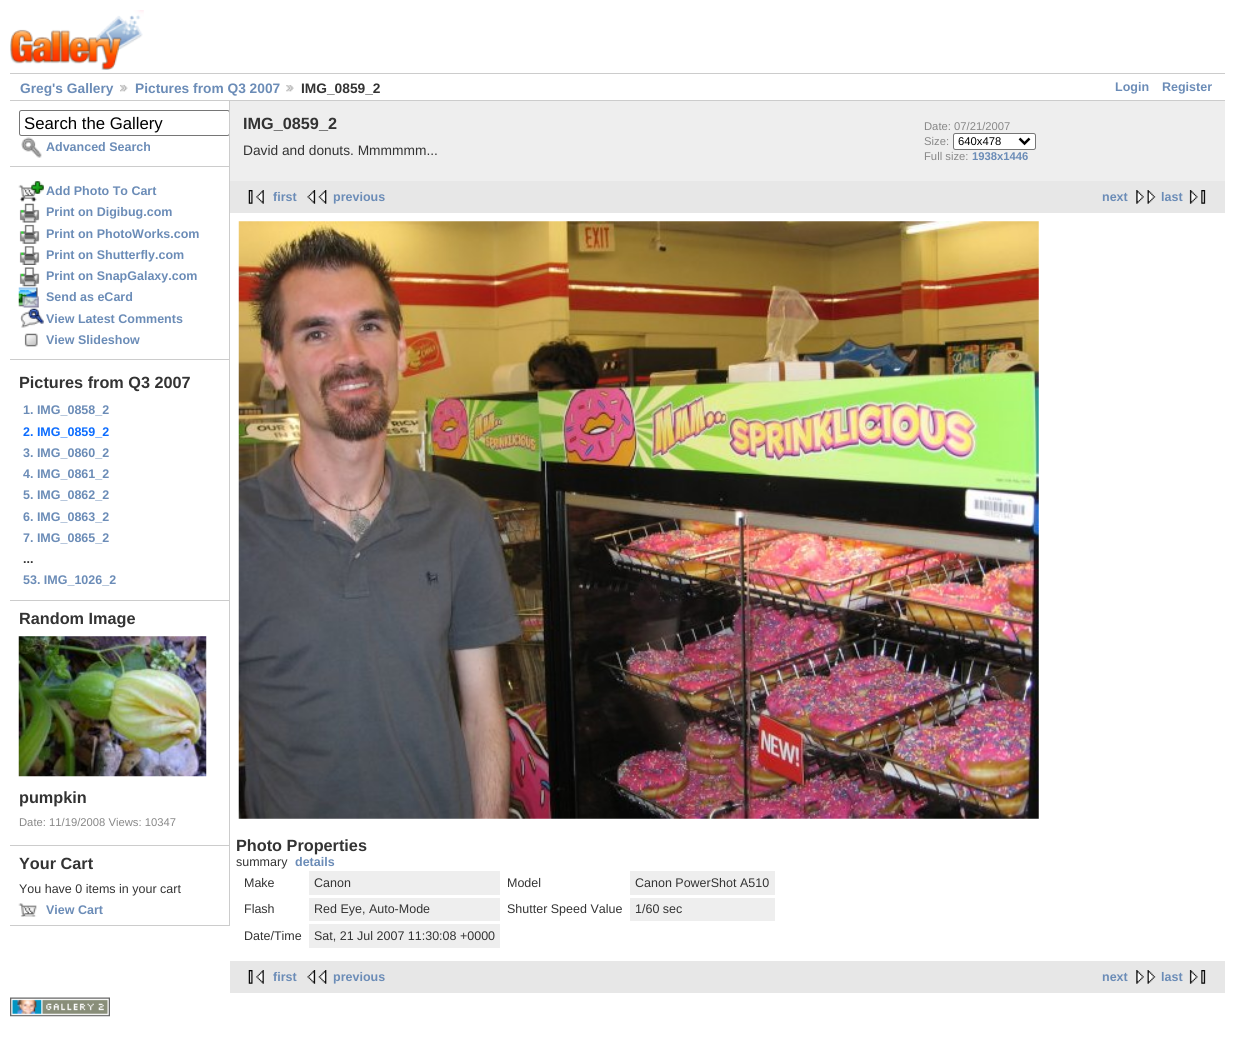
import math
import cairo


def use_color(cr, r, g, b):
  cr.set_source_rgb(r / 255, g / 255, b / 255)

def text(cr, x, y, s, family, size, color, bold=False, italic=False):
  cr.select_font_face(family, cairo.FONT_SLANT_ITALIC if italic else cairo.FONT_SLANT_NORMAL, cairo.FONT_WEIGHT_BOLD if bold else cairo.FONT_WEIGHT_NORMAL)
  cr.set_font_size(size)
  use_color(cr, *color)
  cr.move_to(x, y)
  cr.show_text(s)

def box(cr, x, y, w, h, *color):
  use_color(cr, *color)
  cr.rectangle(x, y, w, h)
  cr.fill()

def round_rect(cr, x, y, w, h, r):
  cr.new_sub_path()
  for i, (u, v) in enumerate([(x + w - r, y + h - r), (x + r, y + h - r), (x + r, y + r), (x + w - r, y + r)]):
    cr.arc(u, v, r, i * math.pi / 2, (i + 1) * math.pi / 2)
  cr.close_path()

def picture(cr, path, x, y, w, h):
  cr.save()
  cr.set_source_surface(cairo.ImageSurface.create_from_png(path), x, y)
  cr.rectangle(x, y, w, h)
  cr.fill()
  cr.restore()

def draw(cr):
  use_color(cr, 255, 255, 255)
  cr.paint()
  picture(cr, "img_01.png", 10, 10, 134, 60)
  box(cr, 10, 73, 1215, 1, 204, 204, 204)
  box(cr, 10, 100, 1215, 1, 204, 204, 204)
  picture(cr, "img_02.png", 120, 84, 8, 8)
  picture(cr, "img_03.png", 286, 85, 8, 7)
  box(cr, 229, 101, 1, 825, 204, 204, 204)
  box(cr, 10, 166, 219, 1, 204, 204, 204)
  cr.save()
  cr.rectangle(10, 101, 219, 825)
  cr.clip()
  round_rect(cr, 19.5, 110.5, 210, 25, 2)
  use_color(cr, 118, 118, 118)
  cr.set_line_width(1)
  cr.stroke()
  cr.restore()
  picture(cr, "img_04.png", 21, 137, 21, 21)
  box(cr, 10, 359, 219, 1, 204, 204, 204)
  picture(cr, "img_05.png", 18, 181, 26, 21)
  picture(cr, "img_06.png", 19, 203, 21, 20)
  picture(cr, "img_07.png", 19, 224, 21, 20)
  picture(cr, "img_08.png", 19, 246, 21, 19)
  picture(cr, "img_09.png", 19, 267, 21, 20)
  picture(cr, "img_10.png", 18, 287, 21, 21)
  picture(cr, "img_11.png", 20, 308, 24, 20)
  picture(cr, "img_12.png", 24, 333, 14, 14)
  box(cr, 10, 600, 219, 1, 204, 204, 204)
  box(cr, 10, 845, 219, 1, 204, 204, 204)
  picture(cr, "img_13.png", 18, 636, 189, 141)
  box(cr, 10, 925, 219, 1, 204, 204, 204)
  picture(cr, "img_14.png", 18, 903, 19, 14)
  box(cr, 230, 101, 995, 80, 238, 238, 238)
  use_color(cr, 255, 255, 255)
  round_rect(cr, 953.5, 133.5, 82, 16, 2)
  cr.fill_preserve()
  use_color(cr, 118, 118, 118)
  cr.set_line_width(1)
  cr.stroke()
  cr.new_path()
  cr.move_to(1019.5, 138.5)
  cr.line_to(1024.5, 143.5)
  cr.line_to(1029.5, 138.5)
  use_color(cr, 0, 0, 0)
  cr.set_line_width(2.5)
  cr.stroke()
  box(cr, 230, 181, 995, 32, 231, 231, 231)
  picture(cr, "img_15.png", 248, 190, 16, 14)
  picture(cr, "img_16.png", 307, 190, 20, 14)
  picture(cr, "img_17.png", 1136, 190, 20, 14)
  picture(cr, "img_18.png", 1189, 190, 17, 14)
  picture(cr, "img_19.png", 238, 221, 801, 598)
  box(cr, 309, 871, 191, 24, 238, 238, 238)
  box(cr, 630, 871, 145, 24, 238, 238, 238)
  box(cr, 309, 898, 191, 23, 238, 238, 238)
  box(cr, 630, 898, 145, 23, 238, 238, 238)
  box(cr, 309, 924, 191, 24, 238, 238, 238)
  box(cr, 230, 961, 995, 32, 231, 231, 231)
  picture(cr, "img_15.png", 248, 970, 16, 14)
  picture(cr, "img_16.png", 307, 970, 20, 14)
  picture(cr, "img_17.png", 1136, 970, 20, 14)
  picture(cr, "img_18.png", 1189, 970, 17, 14)
  picture(cr, "img_20.png", 10, 997, 100, 20)
  text(cr, 20, 93, "Greg's Gallery", "Liberation Sans", 13.75, (107, 140, 183), bold=True)
  text(cr, 135, 93, "Pictures from Q3 2007", "Liberation Sans", 13.75, (107, 140, 183), bold=True)
  text(cr, 301, 93, "IMG_0859_2", "Liberation Sans", 13.75, (51, 51, 51), bold=True)
  text(cr, 1115, 91, "Login", "Liberation Sans", 12.5, (107, 140, 183), bold=True)
  text(cr, 1162, 91, "Register", "Liberation Sans", 12.5, (107, 140, 183), bold=True)
  text(cr, 24, 129, "Search the Gallery", "Liberation Sans", 16.75, (0, 0, 0))
  text(cr, 46, 151, "Advanced Search", "Liberation Sans", 12.5, (107, 140, 183), bold=True)
  text(cr, 46, 195, "Add Photo To Cart", "Liberation Sans", 12.5, (107, 140, 183), bold=True)
  text(cr, 46, 216, "Print on Digibug.com", "Liberation Sans", 12.5, (107, 140, 183), bold=True)
  text(cr, 46, 238, "Print on PhotoWorks.com", "Liberation Sans", 12.5, (107, 140, 183), bold=True)
  text(cr, 46, 259, "Print on Shutterfly.com", "Liberation Sans", 12.5, (107, 140, 183), bold=True)
  text(cr, 46, 280, "Print on SnapGalaxy.com", "Liberation Sans", 12.5, (107, 140, 183), bold=True)
  text(cr, 46, 301, "Send as eCard", "Liberation Sans", 12.5, (107, 140, 183), bold=True)
  text(cr, 46, 323, "View Latest Comments", "Liberation Sans", 12.5, (107, 140, 183), bold=True)
  text(cr, 46, 344, "View Slideshow", "Liberation Sans", 12.5, (107, 140, 183), bold=True)
  text(cr, 19, 388, "Pictures from Q3 2007", "Liberation Sans", 16.25, (51, 51, 51), bold=True)
  text(cr, 23, 414, "1. IMG_0858_2", "Liberation Sans", 12.5, (107, 140, 183), bold=True)
  text(cr, 23, 436, "2. IMG_0859_2", "Liberation Sans", 12.5, (11, 108, 255), bold=True)
  text(cr, 23, 457, "3. IMG_0860_2", "Liberation Sans", 12.5, (107, 140, 183), bold=True)
  text(cr, 23, 478, "4. IMG_0861_2", "Liberation Sans", 12.5, (107, 140, 183), bold=True)
  text(cr, 23, 499, "5. IMG_0862_2", "Liberation Sans", 12.5, (107, 140, 183), bold=True)
  text(cr, 23, 521, "6. IMG_0863_2", "Liberation Sans", 12.5, (107, 140, 183), bold=True)
  text(cr, 23, 542, "7. IMG_0865_2", "Liberation Sans", 12.5, (107, 140, 183), bold=True)
  text(cr, 23, 563, "...", "Liberation Sans", 12.5, (51, 51, 51), bold=True)
  text(cr, 23, 584, "53. IMG_1026_2", "Liberation Sans", 12.5, (107, 140, 183), bold=True)
  text(cr, 19, 624, "Random Image", "Liberation Sans", 16.25, (51, 51, 51), bold=True)
  text(cr, 19, 803, "pumpkin", "Liberation Sans", 16.25, (51, 51, 51), bold=True)
  text(cr, 19, 826, "Date: 11/19/2008 Views: 10347", "Liberation Sans", 11.25, (136, 136, 136))
  text(cr, 19, 869, "Your Cart", "Liberation Sans", 16.25, (51, 51, 51), bold=True)
  text(cr, 19, 893, "You have 0 items in your cart", "Liberation Sans", 12.5, (51, 51, 51))
  text(cr, 46, 914, "View Cart", "Liberation Sans", 12.5, (107, 140, 183), bold=True)
  text(cr, 243, 129, "IMG_0859_2", "Liberation Sans", 16.25, (51, 51, 51), bold=True)
  text(cr, 243, 155, "David and donuts. Mmmmmm...", "Liberation Sans", 13.75, (51, 51, 51))
  text(cr, 924, 130, "Date: 07/21/2007", "Liberation Sans", 11.25, (136, 136, 136))
  text(cr, 924, 145, "Size:", "Liberation Sans", 11.25, (136, 136, 136))
  text(cr, 958, 145, "640x478", "Liberation Sans", 11.25, (0, 0, 0))
  text(cr, 924, 160, "Full size:", "Liberation Sans", 11.25, (136, 136, 136))
  text(cr, 972, 160, "1938x1446", "Liberation Sans", 11.25, (107, 140, 183), bold=True)
  text(cr, 273, 201, "first", "Liberation Sans", 12.5, (107, 140, 183), bold=True)
  text(cr, 333, 201, "previous", "Liberation Sans", 12.5, (107, 140, 183), bold=True)
  text(cr, 1102, 201, "next", "Liberation Sans", 12.5, (107, 140, 183), bold=True)
  text(cr, 1161, 201, "last", "Liberation Sans", 12.5, (107, 140, 183), bold=True)
  text(cr, 236, 851, "Photo Properties", "Liberation Sans", 16.25, (51, 51, 51), bold=True)
  text(cr, 236, 866, "summary", "Liberation Sans", 12.5, (51, 51, 51))
  text(cr, 295, 866, "details", "Liberation Sans", 12.5, (107, 140, 183), bold=True)
  text(cr, 244, 887, "Make", "Liberation Sans", 12.5, (51, 51, 51))
  text(cr, 314, 887, "Canon", "Liberation Sans", 12.5, (51, 51, 51))
  text(cr, 507, 887, "Model", "Liberation Sans", 12.5, (51, 51, 51))
  text(cr, 635, 887, "Canon PowerShot A510", "Liberation Sans", 12.5, (51, 51, 51))
  text(cr, 244, 913, "Flash", "Liberation Sans", 12.5, (51, 51, 51))
  text(cr, 314, 913, "Red Eye, Auto-Mode", "Liberation Sans", 12.5, (51, 51, 51))
  text(cr, 507, 913, "Shutter Speed Value", "Liberation Sans", 12.5, (51, 51, 51))
  text(cr, 635, 913, "1/60 sec", "Liberation Sans", 12.5, (51, 51, 51))
  text(cr, 244, 940, "Date/Time", "Liberation Sans", 12.5, (51, 51, 51))
  text(cr, 314, 940, "Sat, 21 Jul 2007 11:30:08 +0000", "Liberation Sans", 12.5, (51, 51, 51))
  text(cr, 273, 981, "first", "Liberation Sans", 12.5, (107, 140, 183), bold=True)
  text(cr, 333, 981, "previous", "Liberation Sans", 12.5, (107, 140, 183), bold=True)
  text(cr, 1102, 981, "next", "Liberation Sans", 12.5, (107, 140, 183), bold=True)
  text(cr, 1161, 981, "last", "Liberation Sans", 12.5, (107, 140, 183), bold=True)


surface = cairo.ImageSurface(cairo.FORMAT_RGB24, 1234, 1057)
cr = cairo.Context(surface)
options = cairo.FontOptions()
options.set_hint_metrics(cairo.HINT_METRICS_OFF)
options.set_hint_style(cairo.HINT_STYLE_NONE)
cr.set_font_options(options)
cr.set_miter_limit(4)
draw(cr)
surface.write_to_png("out.png")
